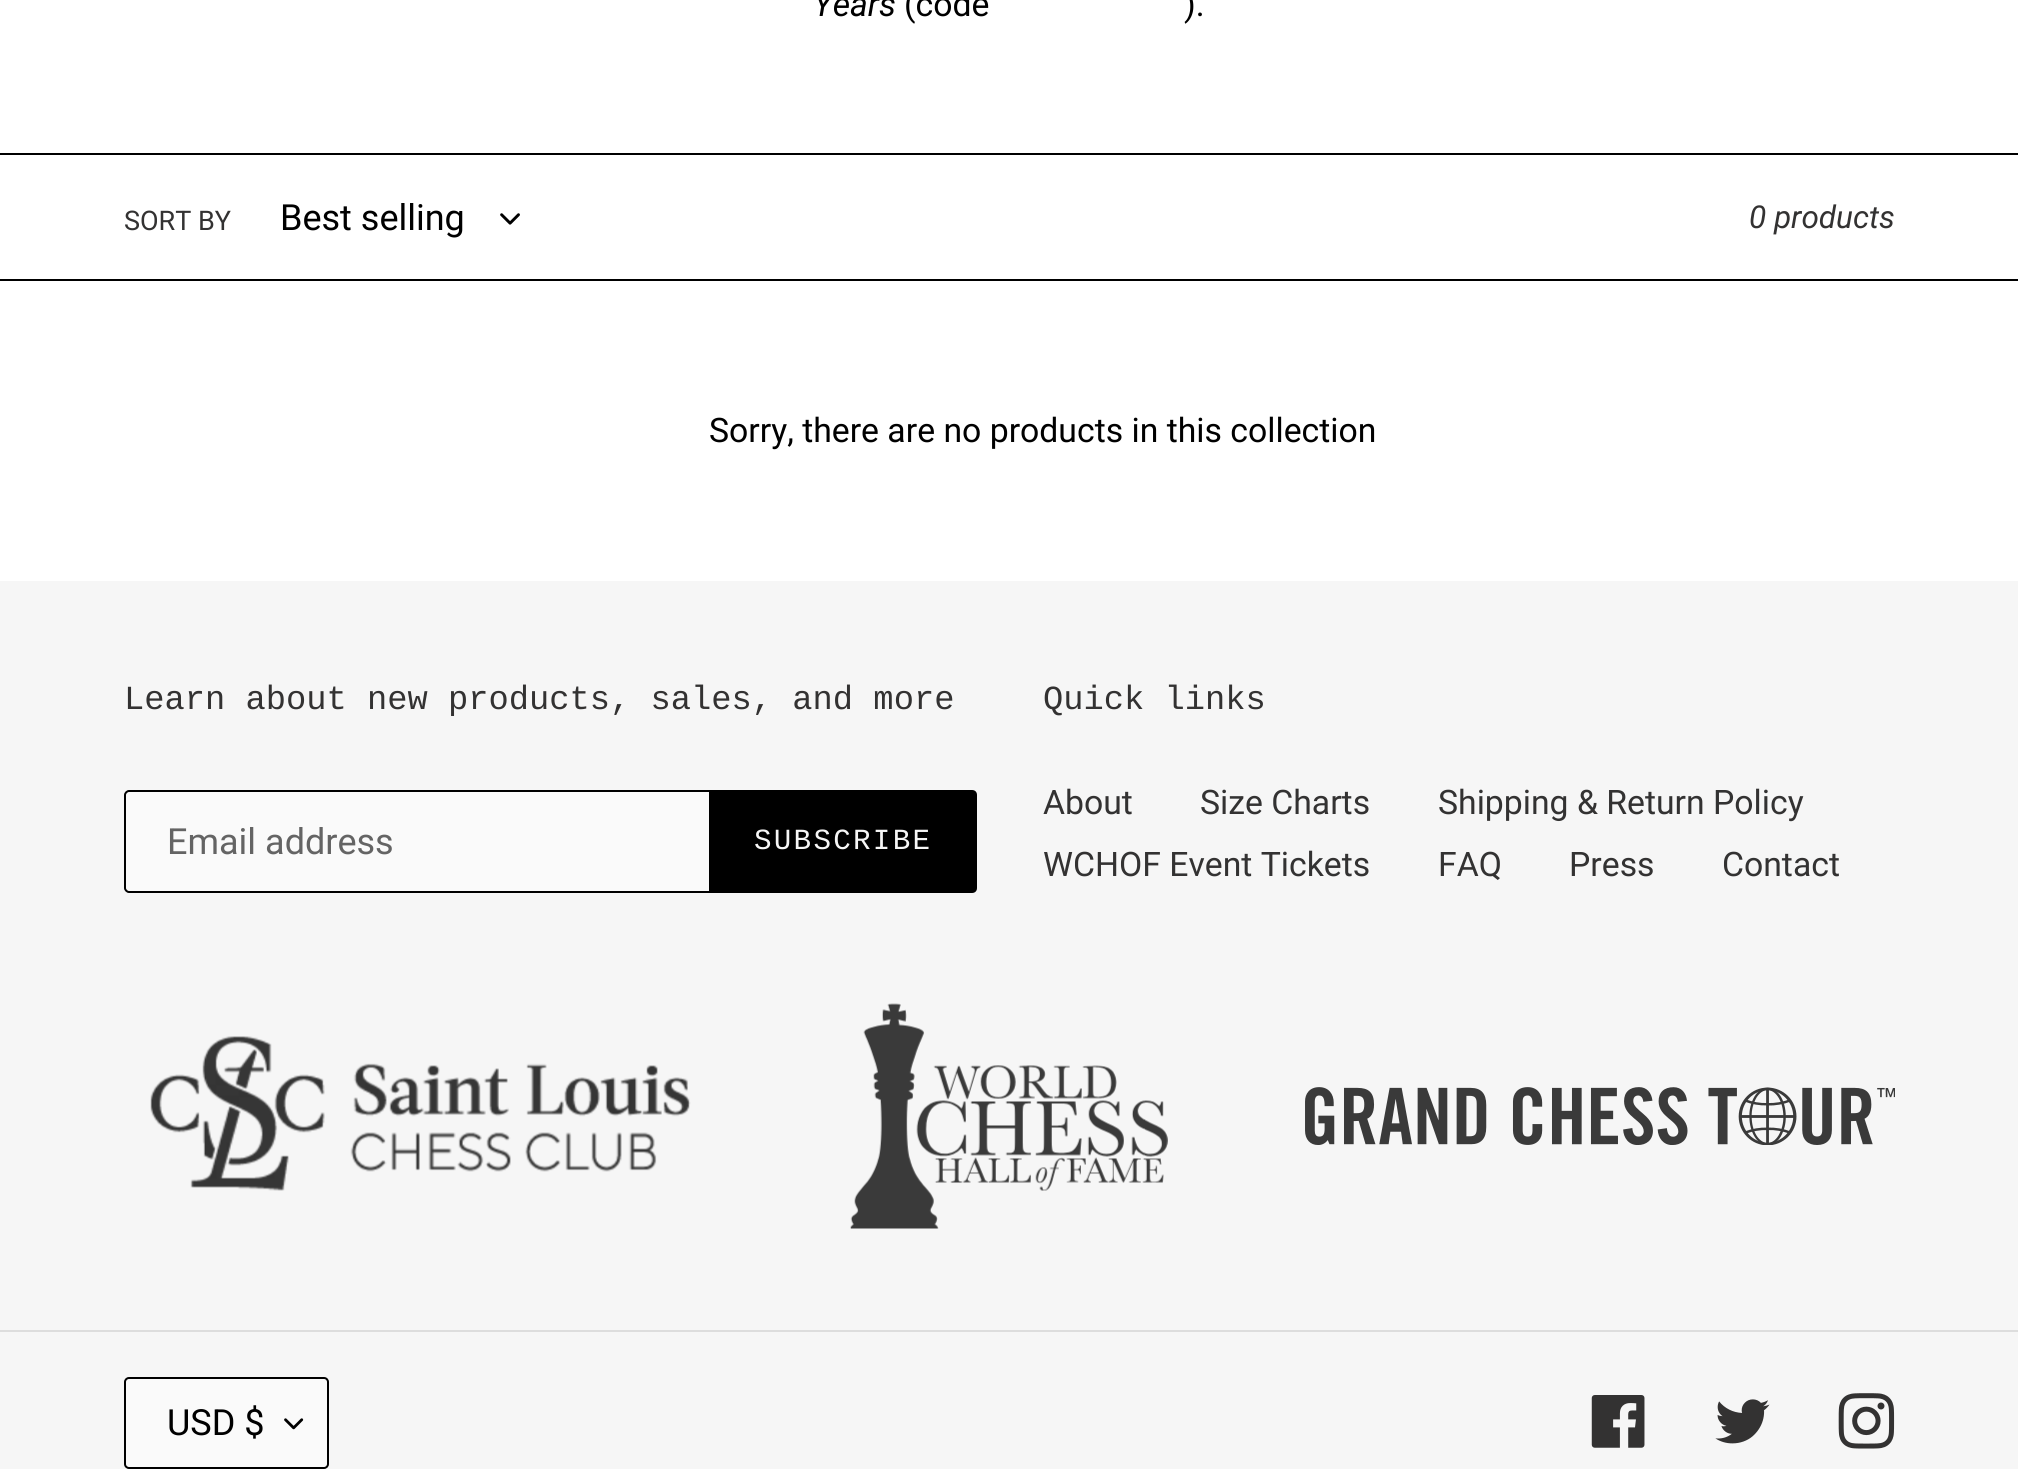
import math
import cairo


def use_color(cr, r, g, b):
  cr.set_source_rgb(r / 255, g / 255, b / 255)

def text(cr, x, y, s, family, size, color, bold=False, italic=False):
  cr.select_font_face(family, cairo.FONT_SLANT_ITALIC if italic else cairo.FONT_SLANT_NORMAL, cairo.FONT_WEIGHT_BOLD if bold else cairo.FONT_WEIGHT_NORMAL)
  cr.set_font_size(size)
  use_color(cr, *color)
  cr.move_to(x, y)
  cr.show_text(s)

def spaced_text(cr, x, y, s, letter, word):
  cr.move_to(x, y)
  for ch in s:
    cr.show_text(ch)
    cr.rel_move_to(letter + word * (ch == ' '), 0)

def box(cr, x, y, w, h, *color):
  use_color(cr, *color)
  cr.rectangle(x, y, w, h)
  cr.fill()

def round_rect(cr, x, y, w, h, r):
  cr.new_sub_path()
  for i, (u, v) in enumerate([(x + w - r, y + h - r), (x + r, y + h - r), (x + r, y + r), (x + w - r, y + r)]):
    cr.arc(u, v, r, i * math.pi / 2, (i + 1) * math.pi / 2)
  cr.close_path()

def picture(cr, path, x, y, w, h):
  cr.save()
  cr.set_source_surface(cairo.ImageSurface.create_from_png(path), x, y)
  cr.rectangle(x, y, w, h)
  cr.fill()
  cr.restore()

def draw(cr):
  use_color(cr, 255, 255, 255)
  cr.paint()
  box(cr, 0, 153, 2018, 2, 0, 0, 0)
  box(cr, 0, 279, 2018, 2, 0, 0, 0)
  picture(cr, "img_01.png", 500, 213, 20, 12)
  box(cr, 0, 581, 2018, 888, 246, 246, 246)
  use_color(cr, 250, 250, 250)
  cr.new_path()
  cr.move_to(129, 791)
  cr.line_to(710, 791)
  cr.line_to(710, 892)
  cr.line_to(129, 892)
  cr.curve_to(127, 892, 125, 890, 125, 888)
  cr.line_to(125, 795)
  cr.curve_to(125, 793, 127, 791, 129, 791)
  cr.close_path()
  cr.fill_preserve()
  use_color(cr, 0, 0, 0)
  cr.stroke()
  cr.new_path()
  cr.move_to(711, 790)
  cr.line_to(972, 790)
  cr.curve_to(975, 790, 977, 792, 977, 795)
  cr.line_to(977, 888)
  cr.curve_to(977, 891, 975, 893, 972, 893)
  cr.line_to(711, 893)
  cr.close_path()
  cr.fill()
  picture(cr, "img_02.png", 150, 1036, 541, 155)
  picture(cr, "img_03.png", 850, 1003, 318, 226)
  picture(cr, "img_04.png", 1305, 1087, 590, 58)
  box(cr, 0, 1330, 2018, 2, 221, 221, 221)
  use_color(cr, 250, 250, 250)
  round_rect(cr, 124, 1377, 205, 92, 5)
  cr.fill()
  picture(cr, "img_05.png", 284, 1418, 20, 12)
  round_rect(cr, 125, 1378, 203, 90, 4)
  use_color(cr, 0, 0, 0)
  cr.stroke()
  picture(cr, "img_06.png", 1591, 1395, 54, 53)
  picture(cr, "img_07.png", 1715, 1399, 55, 45)
  picture(cr, "img_08.png", 1838, 1393, 57, 56)
  text(cr, 813, 16, "Years", "Roboto", 33.75, (0, 0, 0), italic=True)
  text(cr, 904, 16, "(code", "Roboto", 33.75, (0, 0, 0))
  text(cr, 1184, 16, ").", "Roboto", 33.75, (0, 0, 0))
  text(cr, 124, 230, "SORT BY", "Roboto", 27, (51, 50, 50))
  text(cr, 280, 230, "Best selling", "Roboto", 36, (0, 0, 0))
  text(cr, 1749, 228, "0 products", "Roboto", 31.5, (51, 50, 50), italic=True)
  text(cr, 709, 442, "Sorry, there are no products in this collection", "Roboto", 33.75, (0, 0, 0))
  text(cr, 124, 709, "Learn about new products, sales, and more", "Liberation Mono", 33.75, (51, 50, 50))
  text(cr, 167, 854, "Email address", "Roboto", 36, (100, 100, 100))
  cr.select_font_face("Liberation Mono")
  cr.set_font_size(29.25)
  use_color(cr, 246, 246, 246)
  spaced_text(cr, 754, 849, "SUBSCRIBE", 2.25, 0)
  text(cr, 1043, 709, "Quick links", "Liberation Mono", 33.75, (51, 50, 50))
  text(cr, 1043, 814, "About", "Roboto", 33.75, (51, 50, 50))
  text(cr, 1200, 814, "Size Charts", "Roboto", 33.75, (51, 50, 50))
  text(cr, 1438, 814, "Shipping & Return Policy", "Roboto", 33.75, (51, 50, 50))
  text(cr, 1043, 876, "WCHOF Event Tickets", "Roboto", 33.75, (51, 50, 50))
  text(cr, 1438, 876, "FAQ", "Roboto", 33.75, (51, 50, 50))
  text(cr, 1569, 876, "Press", "Roboto", 33.75, (51, 50, 50))
  text(cr, 1722, 876, "Contact", "Roboto", 33.75, (51, 50, 50))
  text(cr, 167, 1435, "USD $", "Roboto", 36, (0, 0, 0))


surface = cairo.ImageSurface(cairo.FORMAT_RGB24, 2018, 1469)
cr = cairo.Context(surface)
options = cairo.FontOptions()
options.set_hint_metrics(cairo.HINT_METRICS_OFF)
options.set_hint_style(cairo.HINT_STYLE_NONE)
cr.set_font_options(options)
cr.set_miter_limit(4)
draw(cr)
surface.write_to_png("out.png")
